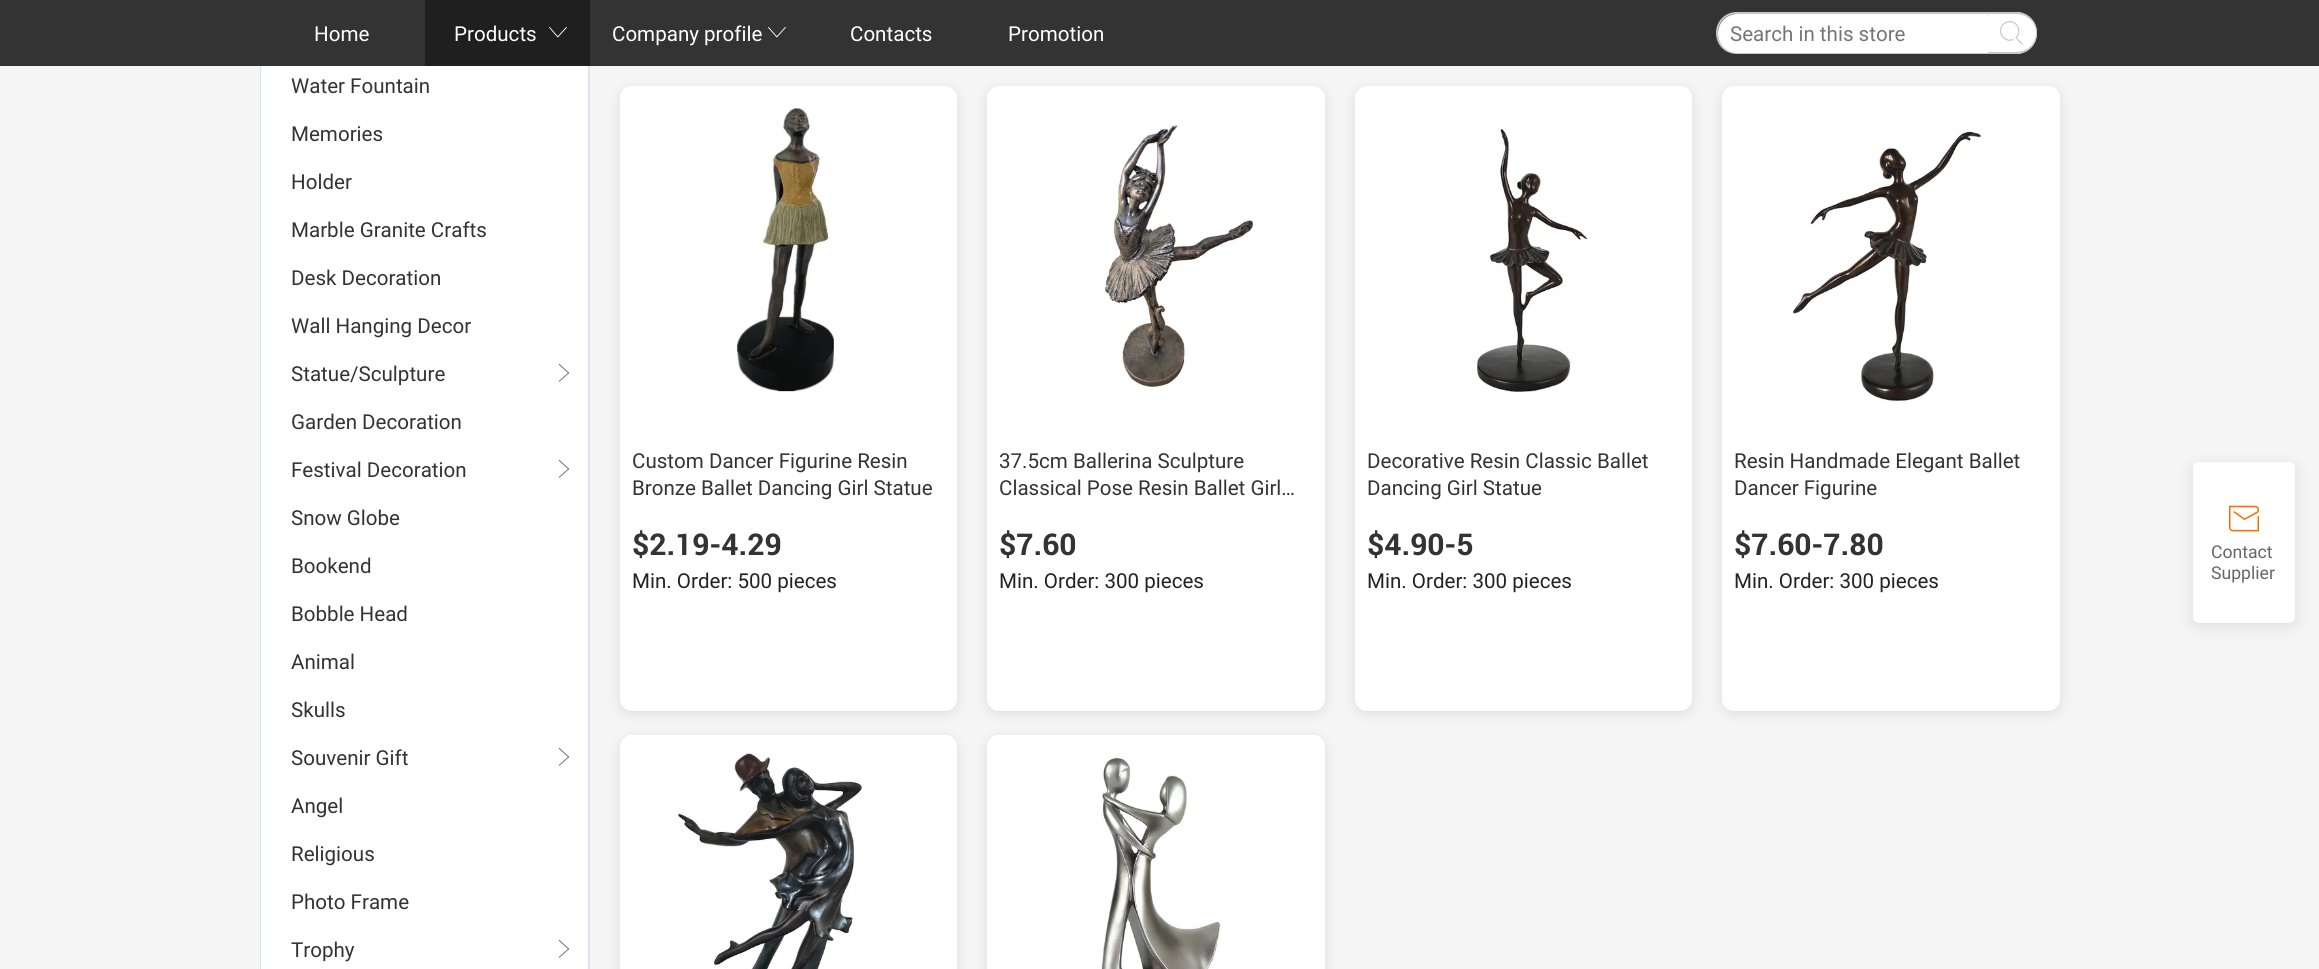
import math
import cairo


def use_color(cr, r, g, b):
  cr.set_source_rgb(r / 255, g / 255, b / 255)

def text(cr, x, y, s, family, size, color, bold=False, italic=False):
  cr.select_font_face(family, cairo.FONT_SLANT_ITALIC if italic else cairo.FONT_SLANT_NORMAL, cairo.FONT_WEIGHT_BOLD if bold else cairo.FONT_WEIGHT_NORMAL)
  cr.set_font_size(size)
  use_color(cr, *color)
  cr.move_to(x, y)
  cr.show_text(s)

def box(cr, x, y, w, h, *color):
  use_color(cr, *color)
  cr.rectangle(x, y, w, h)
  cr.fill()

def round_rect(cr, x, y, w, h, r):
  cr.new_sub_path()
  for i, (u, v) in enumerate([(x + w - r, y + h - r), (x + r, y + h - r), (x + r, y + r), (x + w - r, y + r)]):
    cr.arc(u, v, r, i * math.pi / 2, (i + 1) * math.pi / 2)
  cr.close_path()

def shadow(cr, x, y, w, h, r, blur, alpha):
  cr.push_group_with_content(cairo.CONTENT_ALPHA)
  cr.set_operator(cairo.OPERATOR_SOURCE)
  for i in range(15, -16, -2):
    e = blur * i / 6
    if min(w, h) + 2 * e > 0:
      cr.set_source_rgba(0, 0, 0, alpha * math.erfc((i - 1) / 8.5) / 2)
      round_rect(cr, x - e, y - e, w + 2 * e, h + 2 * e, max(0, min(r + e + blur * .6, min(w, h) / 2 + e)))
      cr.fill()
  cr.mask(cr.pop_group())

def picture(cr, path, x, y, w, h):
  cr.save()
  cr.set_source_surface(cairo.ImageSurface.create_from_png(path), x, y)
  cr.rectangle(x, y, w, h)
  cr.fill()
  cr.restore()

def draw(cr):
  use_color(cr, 245, 245, 245)
  cr.paint()
  box(cr, 0, 0, 2319, 66, 51, 51, 51)
  box(cr, 425, 0, 165, 66, 31, 31, 31)
  picture(cr, "img_01.png", 549, 27, 18, 11)
  picture(cr, "img_02.png", 768, 27, 18, 11)
  use_color(cr, 196, 198, 207)
  cr.set_fill_rule(cairo.FILL_RULE_EVEN_ODD)
  cr.new_path()
  cr.move_to(1737, 12)
  cr.line_to(1988, 12)
  cr.line_to(1988, 54)
  cr.line_to(1737, 54)
  cr.curve_to(1725, 54, 1716, 45, 1716, 33)
  cr.curve_to(1716, 21, 1725, 12, 1737, 12)
  cr.close_path()
  cr.move_to(1737, 14)
  cr.line_to(1988, 14)
  cr.line_to(1988, 52)
  cr.line_to(1737, 52)
  cr.curve_to(1726, 52, 1718, 44, 1718, 33)
  cr.curve_to(1718, 22, 1726, 14, 1737, 14)
  cr.close_path()
  cr.fill()
  use_color(cr, 255, 255, 255)
  cr.new_path()
  cr.move_to(1737.5, 14)
  cr.line_to(1987, 14)
  cr.curve_to(1987.5, 14, 1988, 14.5, 1988, 15)
  cr.line_to(1988, 52)
  cr.curve_to(1988, 52.5, 1987.5, 53, 1987, 53)
  cr.line_to(1737.5, 53)
  cr.curve_to(1726.5, 53, 1718, 44.5, 1718, 33.5)
  cr.curve_to(1718, 22.5, 1726.5, 14, 1737.5, 14)
  cr.close_path()
  cr.fill()
  cr.new_path()
  cr.move_to(1988, 12)
  cr.line_to(2016, 12)
  cr.curve_to(2027.5, 12, 2037, 21.5, 2037, 33)
  cr.curve_to(2037, 44.5, 2027.5, 54, 2016, 54)
  cr.line_to(1988, 54)
  cr.close_path()
  cr.fill()
  use_color(cr, 196, 198, 207)
  cr.new_path()
  cr.move_to(1988, 12)
  cr.line_to(2016, 12)
  cr.curve_to(2028, 12, 2037, 21, 2037, 33)
  cr.curve_to(2037, 45, 2028, 54, 2016, 54)
  cr.line_to(1988, 54)
  cr.close_path()
  cr.move_to(1988, 14)
  cr.line_to(2016, 14)
  cr.curve_to(2027, 14, 2036, 22, 2036, 33)
  cr.curve_to(2036, 44, 2027, 52, 2016, 52)
  cr.line_to(1988, 52)
  cr.close_path()
  cr.fill()
  picture(cr, "img_03.png", 2000, 21, 23, 24)
  box(cr, 588, 66, 2, 903, 219, 227, 239)
  box(cr, 260, 66, 1, 903, 219, 227, 239)
  box(cr, 261, 66, 327, 903, 255, 255, 255)
  picture(cr, "img_04.png", 558, 363, 12, 19)
  picture(cr, "img_04.png", 558, 459, 12, 19)
  picture(cr, "img_04.png", 558, 747, 12, 19)
  picture(cr, "img_04.png", 558, 939, 12, 19)
  use_color(cr, 0, 0, 0)
  shadow(cr, 620, 89, 337, 625, 12, 6, 0.1)
  use_color(cr, 255, 255, 255)
  round_rect(cr, 620, 86, 337, 625, 12)
  cr.fill()
  picture(cr, "img_05.png", 736, 108, 99, 285)
  use_color(cr, 0, 0, 0)
  shadow(cr, 987, 89, 338, 625, 12, 6, 0.1)
  use_color(cr, 255, 255, 255)
  round_rect(cr, 987, 86, 338, 625, 12)
  cr.fill()
  picture(cr, "img_06.png", 1103, 124, 152, 264)
  use_color(cr, 0, 0, 0)
  shadow(cr, 1355, 89, 337, 625, 12, 6, 0.1)
  use_color(cr, 255, 255, 255)
  round_rect(cr, 1355, 86, 337, 625, 12)
  cr.fill()
  picture(cr, "img_07.png", 1476, 129, 112, 263)
  use_color(cr, 0, 0, 0)
  shadow(cr, 1722, 89, 338, 625, 12, 6, 0.1)
  use_color(cr, 255, 255, 255)
  round_rect(cr, 1722, 86, 338, 625, 12)
  cr.fill()
  picture(cr, "img_08.png", 1792, 131, 190, 272)
  use_color(cr, 0, 0, 0)
  shadow(cr, 620, 738, 337, 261, 12, 6, 0.1)
  use_color(cr, 255, 255, 255)
  round_rect(cr, 620, 735, 337, 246, 12)
  cr.fill()
  picture(cr, "img_09.png", 677, 752, 185, 217)
  use_color(cr, 0, 0, 0)
  shadow(cr, 987, 738, 338, 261, 12, 6, 0.1)
  use_color(cr, 255, 255, 255)
  round_rect(cr, 987, 735, 338, 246, 12)
  cr.fill()
  picture(cr, "img_10.png", 1101, 757, 120, 212)
  use_color(cr, 0, 0, 0)
  shadow(cr, 2193, 465, 102, 161, 6, 7.5, 0.1)
  use_color(cr, 255, 255, 255)
  round_rect(cr, 2193, 462, 102, 161, 6)
  cr.fill()
  picture(cr, "img_11.png", 2229, 505, 30, 27)
  text(cr, 314, 41, "Home", "Roboto", 21, (255, 255, 255))
  text(cr, 454, 41, "Products", "Roboto", 21, (255, 255, 255))
  text(cr, 612, 41, "Company profile", "Roboto", 21, (255, 255, 255))
  text(cr, 850, 41, "Contacts", "Roboto", 21, (255, 255, 255))
  text(cr, 1008, 41, "Promotion", "Roboto", 21, (255, 255, 255))
  text(cr, 1730, 41, "Search in this store", "Roboto", 21, (117, 117, 117))
  text(cr, 291, 93, "Water Fountain", "Roboto", 21, (51, 51, 51))
  text(cr, 291, 141, "Memories", "Roboto", 21, (51, 51, 51))
  text(cr, 291, 189, "Holder", "Roboto", 21, (51, 51, 51))
  text(cr, 291, 237, "Marble Granite Crafts", "Roboto", 21, (51, 51, 51))
  text(cr, 291, 285, "Desk Decoration", "Roboto", 21, (51, 51, 51))
  text(cr, 291, 333, "Wall Hanging Decor", "Roboto", 21, (51, 51, 51))
  text(cr, 291, 381, "Statue/Sculpture", "Roboto", 21, (51, 51, 51))
  text(cr, 291, 429, "Garden Decoration", "Roboto", 21, (51, 51, 51))
  text(cr, 291, 477, "Festival Decoration", "Roboto", 21, (51, 51, 51))
  text(cr, 291, 525, "Snow Globe", "Roboto", 21, (51, 51, 51))
  text(cr, 291, 573, "Bookend", "Roboto", 21, (51, 51, 51))
  text(cr, 291, 621, "Bobble Head", "Roboto", 21, (51, 51, 51))
  text(cr, 291, 669, "Animal", "Roboto", 21, (51, 51, 51))
  text(cr, 291, 717, "Skulls", "Roboto", 21, (51, 51, 51))
  text(cr, 291, 765, "Souvenir Gift", "Roboto", 21, (51, 51, 51))
  text(cr, 291, 813, "Angel", "Roboto", 21, (51, 51, 51))
  text(cr, 291, 861, "Religious", "Roboto", 21, (51, 51, 51))
  text(cr, 291, 909, "Photo Frame", "Roboto", 21, (51, 51, 51))
  text(cr, 291, 957, "Trophy", "Roboto", 21, (51, 51, 51))
  text(cr, 632, 468, "Custom Dancer Figurine Resin", "Roboto", 21, (51, 51, 51))
  text(cr, 632, 495, "Bronze Ballet Dancing Girl Statue", "Roboto", 21, (51, 51, 51))
  text(cr, 632, 555, "$2.19-4.29", "Roboto", 30, (51, 51, 51), bold=True)
  text(cr, 632, 588, "Min. Order: 500 pieces", "Roboto", 21, (34, 34, 34))
  text(cr, 999, 468, "37.5cm Ballerina Sculpture", "Roboto", 21, (51, 51, 51))
  text(cr, 999, 495, "Classical Pose Resin Ballet Girl…", "Roboto", 21, (51, 51, 51))
  text(cr, 999, 555, "$7.60", "Roboto", 30, (51, 51, 51), bold=True)
  text(cr, 999, 588, "Min. Order: 300 pieces", "Roboto", 21, (34, 34, 34))
  text(cr, 1367, 468, "Decorative Resin Classic Ballet", "Roboto", 21, (51, 51, 51))
  text(cr, 1367, 495, "Dancing Girl Statue", "Roboto", 21, (51, 51, 51))
  text(cr, 1367, 555, "$4.90-5", "Roboto", 30, (51, 51, 51), bold=True)
  text(cr, 1367, 588, "Min. Order: 300 pieces", "Roboto", 21, (34, 34, 34))
  text(cr, 1734, 468, "Resin Handmade Elegant Ballet", "Roboto", 21, (51, 51, 51))
  text(cr, 1734, 495, "Dancer Figurine", "Roboto", 21, (51, 51, 51))
  text(cr, 1734, 555, "$7.60-7.80", "Roboto", 30, (51, 51, 51), bold=True)
  text(cr, 1734, 588, "Min. Order: 300 pieces", "Roboto", 21, (34, 34, 34))
  text(cr, 2211, 558, "Contact", "Roboto", 18, (102, 102, 102))
  text(cr, 2211, 579, "Supplier", "Roboto", 18, (102, 102, 102))


surface = cairo.ImageSurface(cairo.FORMAT_RGB24, 2319, 969)
cr = cairo.Context(surface)
options = cairo.FontOptions()
options.set_hint_metrics(cairo.HINT_METRICS_OFF)
options.set_hint_style(cairo.HINT_STYLE_NONE)
cr.set_font_options(options)
cr.set_miter_limit(4)
draw(cr)
surface.write_to_png("out.png")
